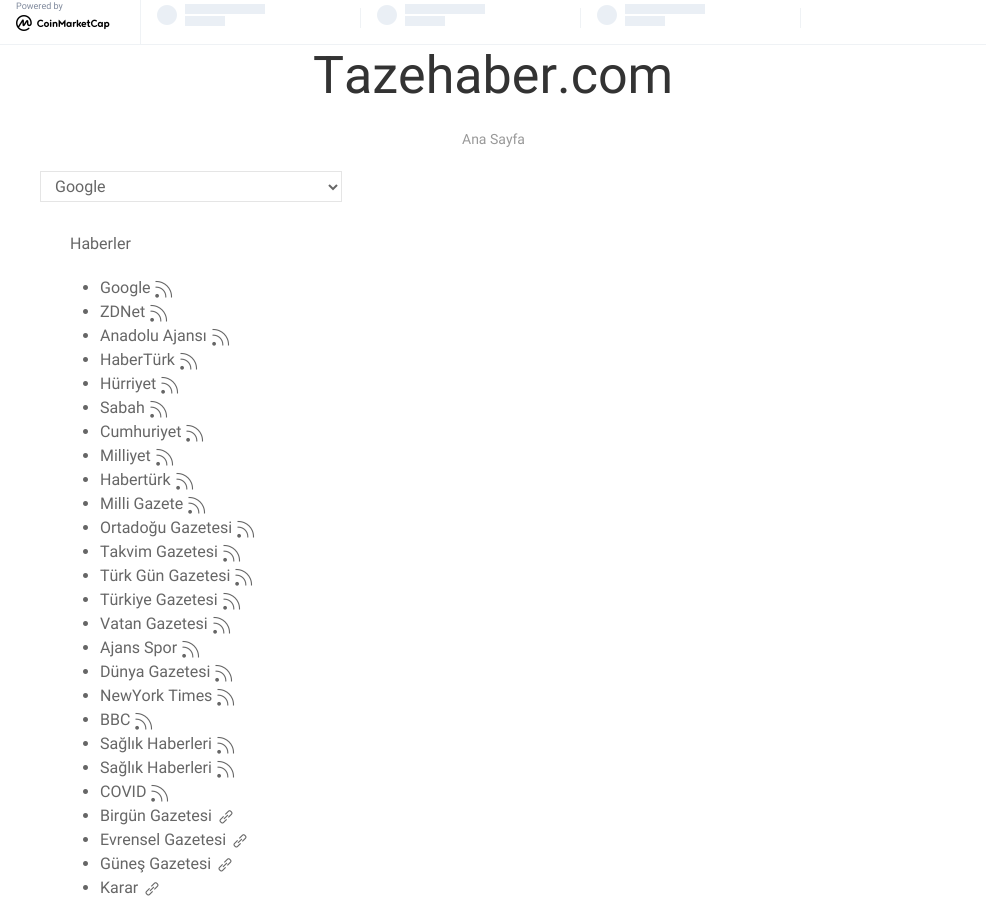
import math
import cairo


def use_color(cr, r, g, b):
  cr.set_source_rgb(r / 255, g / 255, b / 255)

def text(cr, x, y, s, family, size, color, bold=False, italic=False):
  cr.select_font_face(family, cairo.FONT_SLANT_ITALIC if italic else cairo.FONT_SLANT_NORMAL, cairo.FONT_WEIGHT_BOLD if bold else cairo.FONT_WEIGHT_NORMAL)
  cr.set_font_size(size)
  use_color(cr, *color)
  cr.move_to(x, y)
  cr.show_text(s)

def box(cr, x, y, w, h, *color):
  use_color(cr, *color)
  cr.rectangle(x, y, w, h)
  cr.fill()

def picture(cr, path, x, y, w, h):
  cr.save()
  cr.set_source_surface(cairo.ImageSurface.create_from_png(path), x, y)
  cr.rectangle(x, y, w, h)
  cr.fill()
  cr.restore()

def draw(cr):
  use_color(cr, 255, 255, 255)
  cr.paint()
  box(cr, 0, 44, 986, 1, 239, 242, 245)
  box(cr, 140, 0, 1, 44, 239, 242, 245)
  picture(cr, "img_01.png", 16, 15, 94, 16)
  use_color(cr, 234, 239, 245)
  cr.arc(167, 15, 10, 0, 2 * math.pi)
  cr.fill()
  box(cr, 185, 4, 80, 10, 234, 239, 245)
  box(cr, 185, 16, 40, 10, 234, 239, 245)
  box(cr, 360, 8, 1, 20, 239, 242, 245)
  use_color(cr, 234, 239, 245)
  cr.arc(387, 15, 10, 0, 2 * math.pi)
  cr.fill()
  box(cr, 405, 4, 80, 10, 234, 239, 245)
  box(cr, 405, 16, 40, 10, 234, 239, 245)
  box(cr, 580, 8, 1, 20, 239, 242, 245)
  use_color(cr, 234, 239, 245)
  cr.arc(607, 15, 10, 0, 2 * math.pi)
  cr.fill()
  box(cr, 625, 4, 80, 10, 234, 239, 245)
  box(cr, 625, 16, 40, 10, 234, 239, 245)
  box(cr, 800, 8, 1, 20, 239, 242, 245)
  cr.rectangle(40.5, 171.5, 301, 30)
  use_color(cr, 229, 229, 229)
  cr.set_line_width(1)
  cr.stroke()
  cr.new_path()
  cr.move_to(329, 185)
  cr.line_to(333, 189)
  cr.line_to(337, 185)
  use_color(cr, 102, 102, 102)
  cr.set_line_width(2)
  cr.stroke()
  cr.arc(85.5, 287.5, 2.5, 0, 2 * math.pi)
  cr.fill()
  picture(cr, "img_02.png", 155, 280, 18, 18)
  cr.arc(85.5, 311.5, 2.5, 0, 2 * math.pi)
  cr.fill()
  picture(cr, "img_02.png", 150, 304, 18, 18)
  cr.arc(85.5, 335.5, 2.5, 0, 2 * math.pi)
  cr.fill()
  picture(cr, "img_02.png", 212, 328, 18, 18)
  cr.arc(85.5, 359.5, 2.5, 0, 2 * math.pi)
  cr.fill()
  picture(cr, "img_02.png", 180, 352, 18, 18)
  cr.arc(85.5, 383.5, 2.5, 0, 2 * math.pi)
  cr.fill()
  picture(cr, "img_02.png", 161, 376, 18, 18)
  cr.arc(85.5, 407.5, 2.5, 0, 2 * math.pi)
  cr.fill()
  picture(cr, "img_02.png", 150, 400, 18, 18)
  cr.arc(85.5, 431.5, 2.5, 0, 2 * math.pi)
  cr.fill()
  picture(cr, "img_02.png", 186, 424, 18, 18)
  cr.arc(85.5, 455.5, 2.5, 0, 2 * math.pi)
  cr.fill()
  picture(cr, "img_02.png", 156, 448, 18, 18)
  cr.arc(85.5, 479.5, 2.5, 0, 2 * math.pi)
  cr.fill()
  picture(cr, "img_02.png", 176, 472, 18, 18)
  cr.arc(85.5, 503.5, 2.5, 0, 2 * math.pi)
  cr.fill()
  picture(cr, "img_02.png", 188, 496, 18, 18)
  cr.arc(85.5, 527.5, 2.5, 0, 2 * math.pi)
  cr.fill()
  picture(cr, "img_02.png", 237, 520, 18, 18)
  cr.arc(85.5, 551.5, 2.5, 0, 2 * math.pi)
  cr.fill()
  picture(cr, "img_02.png", 223, 544, 18, 18)
  cr.arc(85.5, 575.5, 2.5, 0, 2 * math.pi)
  cr.fill()
  picture(cr, "img_02.png", 235, 568, 18, 18)
  cr.arc(85.5, 599.5, 2.5, 0, 2 * math.pi)
  cr.fill()
  picture(cr, "img_02.png", 223, 592, 18, 18)
  cr.arc(85.5, 623.5, 2.5, 0, 2 * math.pi)
  cr.fill()
  picture(cr, "img_02.png", 213, 616, 18, 18)
  cr.arc(85.5, 647.5, 2.5, 0, 2 * math.pi)
  cr.fill()
  picture(cr, "img_02.png", 182, 640, 18, 18)
  cr.arc(85.5, 671.5, 2.5, 0, 2 * math.pi)
  cr.fill()
  picture(cr, "img_02.png", 215, 664, 18, 18)
  cr.arc(85.5, 695.5, 2.5, 0, 2 * math.pi)
  cr.fill()
  picture(cr, "img_02.png", 217, 688, 18, 18)
  cr.arc(85.5, 719.5, 2.5, 0, 2 * math.pi)
  cr.fill()
  picture(cr, "img_02.png", 135, 712, 18, 18)
  cr.arc(85.5, 743.5, 2.5, 0, 2 * math.pi)
  cr.fill()
  picture(cr, "img_02.png", 217, 736, 18, 18)
  cr.arc(85.5, 767.5, 2.5, 0, 2 * math.pi)
  cr.fill()
  picture(cr, "img_02.png", 217, 760, 18, 18)
  cr.arc(85.5, 791.5, 2.5, 0, 2 * math.pi)
  cr.fill()
  picture(cr, "img_02.png", 151, 784, 18, 18)
  cr.arc(85.5, 815.5, 2.5, 0, 2 * math.pi)
  cr.fill()
  picture(cr, "img_03.png", 219, 810, 14, 14)
  cr.arc(85.5, 839.5, 2.5, 0, 2 * math.pi)
  cr.fill()
  picture(cr, "img_03.png", 233, 834, 14, 14)
  cr.arc(85.5, 863.5, 2.5, 0, 2 * math.pi)
  cr.fill()
  picture(cr, "img_03.png", 218, 858, 14, 14)
  cr.arc(85.5, 887.5, 2.5, 0, 2 * math.pi)
  cr.fill()
  picture(cr, "img_03.png", 145, 882, 14, 14)
  text(cr, 16, 9, "Powered by", "Roboto", 9, (128, 138, 157))
  text(cr, 313, 93, "Tazehaber.com", "Roboto", 52, (51, 51, 51))
  text(cr, 462, 144, "Ana Sayfa", "Roboto", 14, (153, 153, 153))
  text(cr, 55, 192, "Google", "Roboto", 16, (102, 102, 102))
  text(cr, 70, 249, "Haberler", "Roboto", 16, (102, 102, 102))
  text(cr, 100, 293, "Google", "Roboto", 16, (102, 102, 102))
  text(cr, 100, 317, "ZDNet", "Roboto", 16, (102, 102, 102))
  text(cr, 100, 341, "Anadolu Ajansı", "Roboto", 16, (102, 102, 102))
  text(cr, 100, 365, "HaberTürk", "Roboto", 16, (102, 102, 102))
  text(cr, 100, 389, "Hürriyet", "Roboto", 16, (102, 102, 102))
  text(cr, 100, 413, "Sabah", "Roboto", 16, (102, 102, 102))
  text(cr, 100, 437, "Cumhuriyet", "Roboto", 16, (102, 102, 102))
  text(cr, 100, 461, "Milliyet", "Roboto", 16, (102, 102, 102))
  text(cr, 100, 485, "Habertürk", "Roboto", 16, (102, 102, 102))
  text(cr, 100, 509, "Milli Gazete", "Roboto", 16, (102, 102, 102))
  text(cr, 100, 533, "Ortadoğu Gazetesi", "Roboto", 16, (102, 102, 102))
  text(cr, 100, 557, "Takvim Gazetesi", "Roboto", 16, (102, 102, 102))
  text(cr, 100, 581, "Türk Gün Gazetesi", "Roboto", 16, (102, 102, 102))
  text(cr, 100, 605, "Türkiye Gazetesi", "Roboto", 16, (102, 102, 102))
  text(cr, 100, 629, "Vatan Gazetesi", "Roboto", 16, (102, 102, 102))
  text(cr, 100, 653, "Ajans Spor", "Roboto", 16, (102, 102, 102))
  text(cr, 100, 677, "Dünya Gazetesi", "Roboto", 16, (102, 102, 102))
  text(cr, 100, 701, "NewYork Times", "Roboto", 16, (102, 102, 102))
  text(cr, 100, 725, "BBC", "Roboto", 16, (102, 102, 102))
  text(cr, 100, 749, "Sağlık Haberleri", "Roboto", 16, (102, 102, 102))
  text(cr, 100, 773, "Sağlık Haberleri", "Roboto", 16, (102, 102, 102))
  text(cr, 100, 797, "COVID", "Roboto", 16, (102, 102, 102))
  text(cr, 100, 821, "Birgün Gazetesi", "Roboto", 16, (102, 102, 102))
  text(cr, 100, 845, "Evrensel Gazetesi", "Roboto", 16, (102, 102, 102))
  text(cr, 100, 869, "Güneş Gazetesi", "Roboto", 16, (102, 102, 102))
  text(cr, 100, 893, "Karar", "Roboto", 16, (102, 102, 102))


surface = cairo.ImageSurface(cairo.FORMAT_RGB24, 986, 906)
cr = cairo.Context(surface)
options = cairo.FontOptions()
options.set_hint_metrics(cairo.HINT_METRICS_OFF)
options.set_hint_style(cairo.HINT_STYLE_NONE)
cr.set_font_options(options)
cr.set_miter_limit(4)
draw(cr)
surface.write_to_png("out.png")
